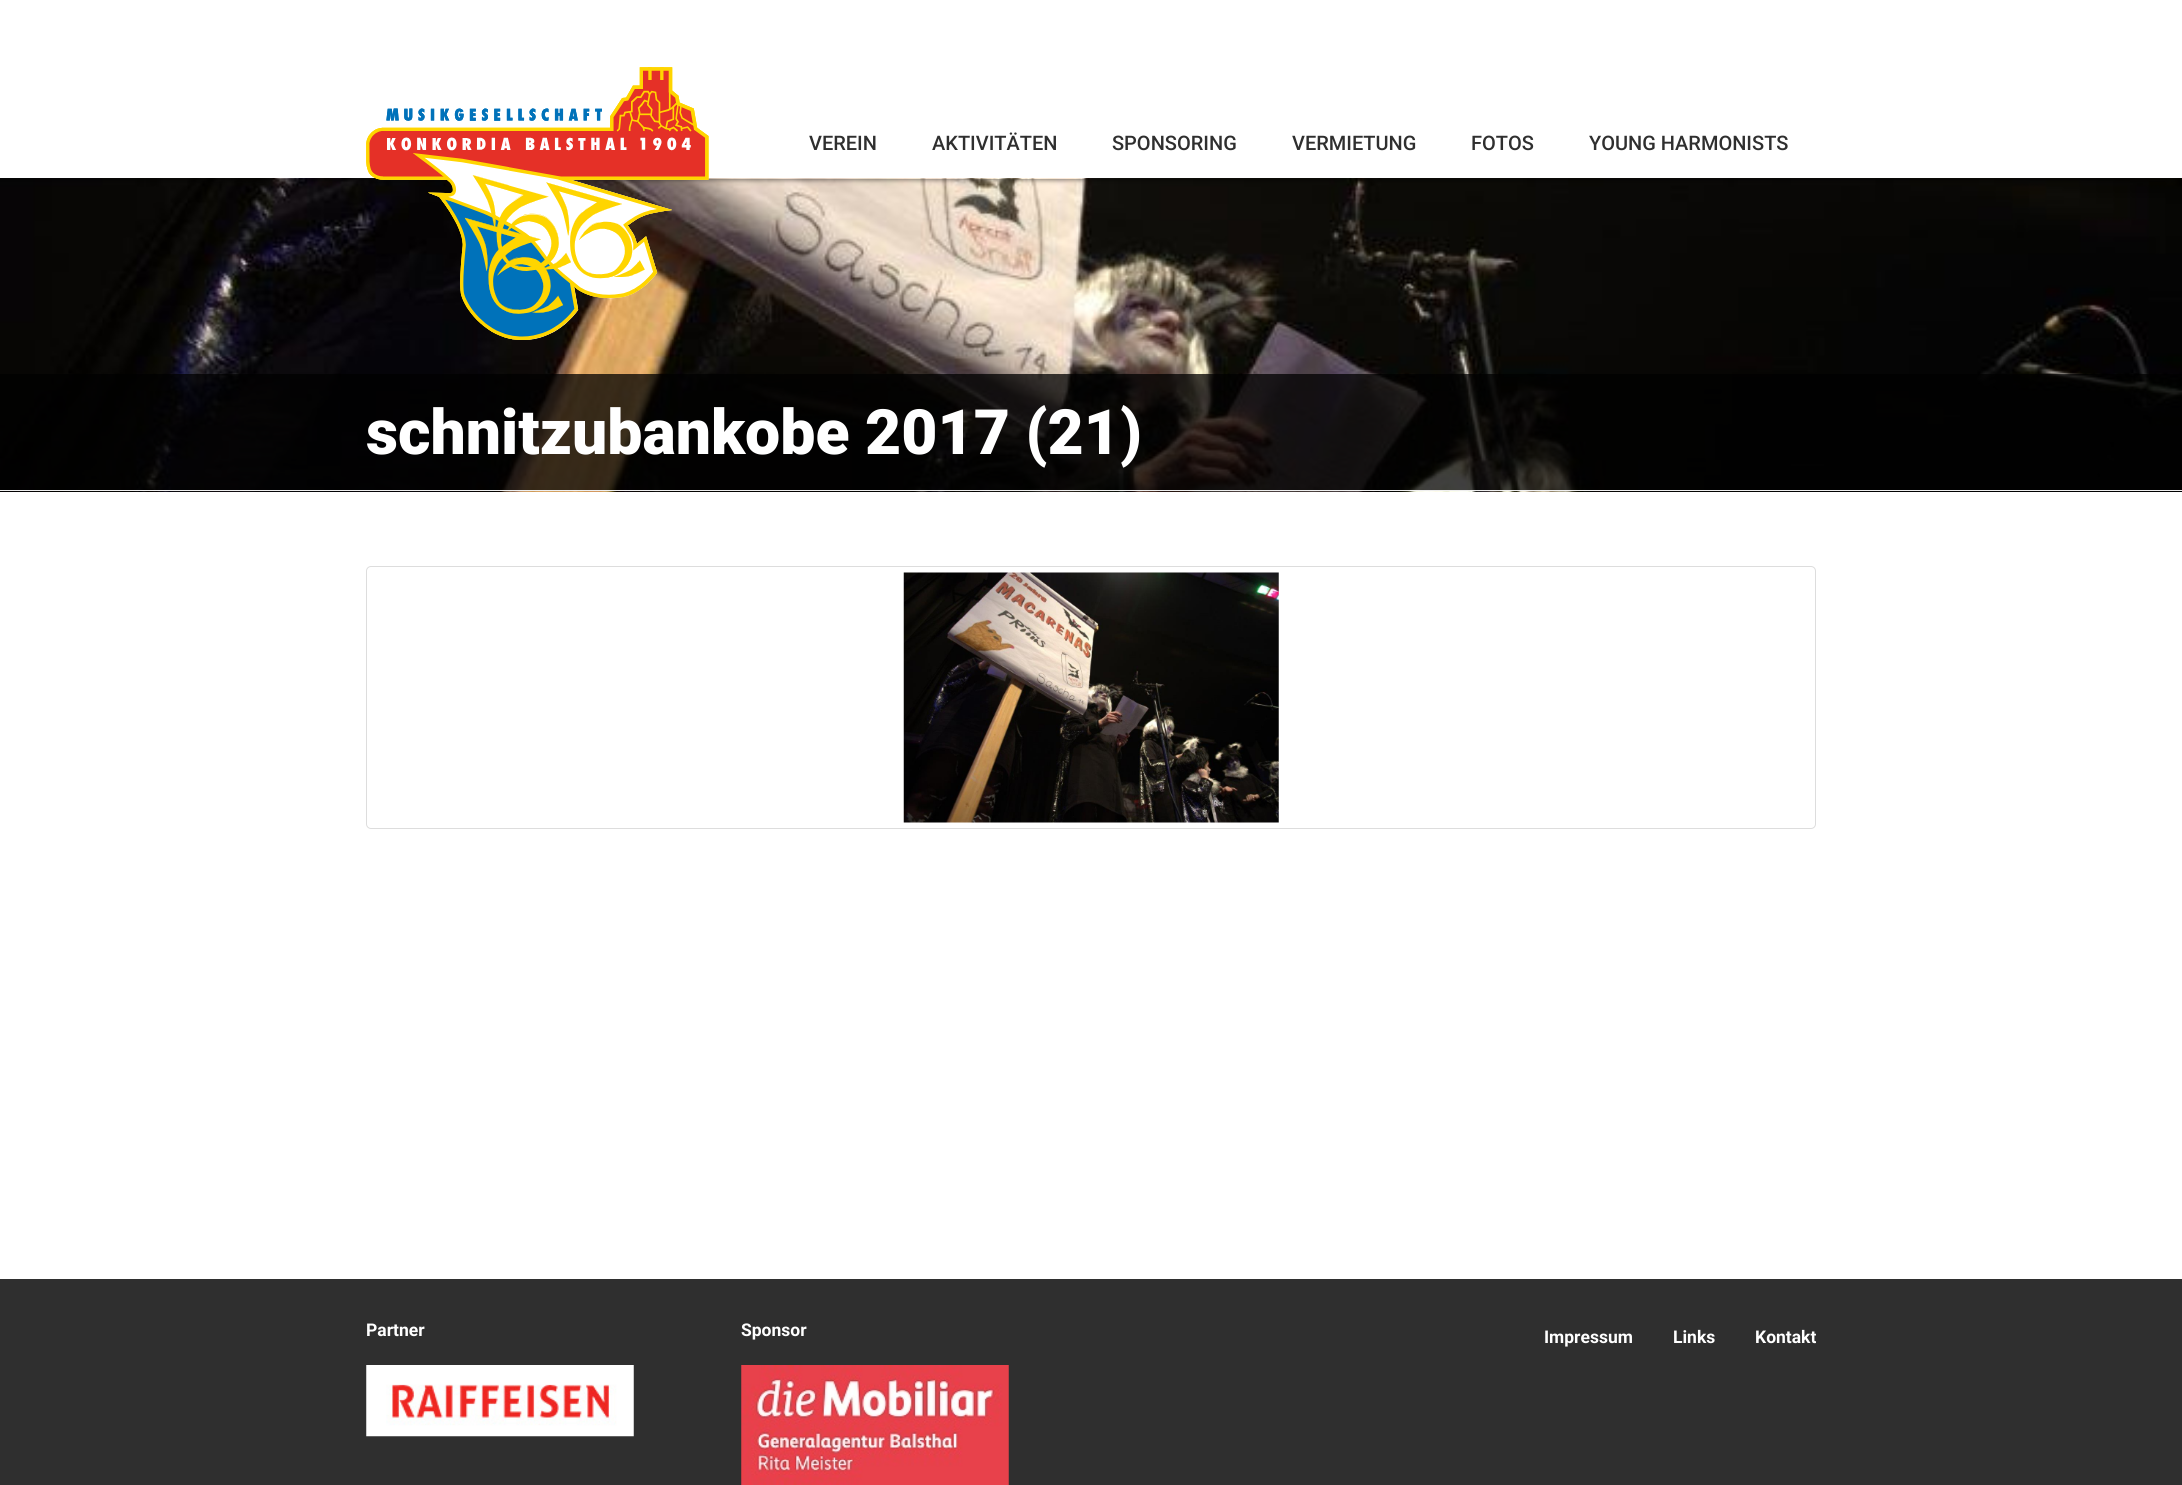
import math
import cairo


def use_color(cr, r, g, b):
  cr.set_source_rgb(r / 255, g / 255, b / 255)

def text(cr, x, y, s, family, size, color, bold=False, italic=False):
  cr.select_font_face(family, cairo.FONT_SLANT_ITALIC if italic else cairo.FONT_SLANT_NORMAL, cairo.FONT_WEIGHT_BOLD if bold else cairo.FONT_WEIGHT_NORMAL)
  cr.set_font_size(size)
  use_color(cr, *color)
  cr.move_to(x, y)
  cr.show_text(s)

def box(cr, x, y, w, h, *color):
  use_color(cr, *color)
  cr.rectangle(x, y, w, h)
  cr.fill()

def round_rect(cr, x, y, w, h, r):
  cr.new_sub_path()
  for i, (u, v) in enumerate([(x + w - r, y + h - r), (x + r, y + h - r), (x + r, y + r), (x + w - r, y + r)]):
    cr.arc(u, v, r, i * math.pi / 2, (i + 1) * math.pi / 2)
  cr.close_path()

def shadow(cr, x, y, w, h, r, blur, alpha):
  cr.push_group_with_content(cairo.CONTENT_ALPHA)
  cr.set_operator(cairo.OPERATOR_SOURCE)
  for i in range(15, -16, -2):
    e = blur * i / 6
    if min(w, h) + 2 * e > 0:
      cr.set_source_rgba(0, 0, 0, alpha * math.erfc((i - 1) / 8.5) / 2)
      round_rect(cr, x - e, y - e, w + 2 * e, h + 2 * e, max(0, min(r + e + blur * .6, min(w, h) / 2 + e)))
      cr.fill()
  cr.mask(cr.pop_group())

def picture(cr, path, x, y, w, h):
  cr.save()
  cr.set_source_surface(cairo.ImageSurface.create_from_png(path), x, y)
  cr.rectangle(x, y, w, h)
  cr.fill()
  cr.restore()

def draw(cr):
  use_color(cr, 255, 255, 255)
  cr.paint()
  picture(cr, "img_05.png", 0, 178, 2182, 314)
  cr.save()
  cr.set_fill_rule(cairo.FILL_RULE_EVEN_ODD)
  cr.new_path()
  cr.move_to(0, 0)
  cr.line_to(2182, 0)
  cr.line_to(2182, 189)
  cr.line_to(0, 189)
  cr.close_path()
  cr.move_to(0, 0)
  cr.line_to(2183, 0)
  cr.line_to(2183, 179)
  cr.line_to(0, 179)
  cr.close_path()
  cr.clip()
  use_color(cr, 0, 0, 0)
  shadow(cr, -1, -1, 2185, 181, 0, 2.5, 0.5)
  cr.restore()
  picture(cr, "img_01.png", 366, 67, 343, 273)
  box(cr, 0, 490, 2182, 1, 238, 238, 238)
  cr.set_source_rgba(0, 0, 0, 0.75)
  cr.rectangle(0, 374, 2182, 116)
  cr.fill()
  round_rect(cr, 366.5, 566.5, 1449, 262, 4.5)
  use_color(cr, 221, 221, 221)
  cr.set_line_width(1)
  cr.stroke()
  picture(cr, "img_02.png", 903, 572, 376, 251)
  box(cr, 0, 1279, 2182, 206, 47, 47, 47)
  picture(cr, "img_03.png", 366, 1365, 268, 72)
  picture(cr, "img_04.png", 741, 1365, 268, 120)
  text(cr, 809, 150, "VEREIN", "Roboto Medium", 20, (47, 47, 47))
  text(cr, 932, 150, "AKTIVITÄTEN", "Roboto Medium", 20, (47, 47, 47))
  text(cr, 1112, 150, "SPONSORING", "Roboto Medium", 20, (47, 47, 47))
  text(cr, 1292, 150, "VERMIETUNG", "Roboto Medium", 20, (47, 47, 47))
  text(cr, 1471, 150, "FOTOS", "Roboto Medium", 20, (47, 47, 47))
  text(cr, 1589, 150, "YOUNG HARMONISTS", "Roboto Medium", 20, (47, 47, 47))
  text(cr, 366, 454, "schnitzubankobe 2017 (21)", "Roboto Black", 62.5, (255, 255, 255))
  text(cr, 366, 1336, "Partner", "Roboto", 17.5, (255, 255, 255), bold=True)
  text(cr, 741, 1336, "Sponsor", "Roboto", 17.5, (255, 255, 255), bold=True)
  text(cr, 1544, 1343, "Impressum", "Roboto", 17.5, (255, 255, 255), bold=True)
  text(cr, 1673, 1343, "Links", "Roboto", 17.5, (255, 255, 255), bold=True)
  text(cr, 1755, 1343, "Kontakt", "Roboto", 17.5, (255, 255, 255), bold=True)


surface = cairo.ImageSurface(cairo.FORMAT_RGB24, 2182, 1485)
cr = cairo.Context(surface)
options = cairo.FontOptions()
options.set_hint_metrics(cairo.HINT_METRICS_OFF)
options.set_hint_style(cairo.HINT_STYLE_NONE)
cr.set_font_options(options)
cr.set_miter_limit(4)
draw(cr)
surface.write_to_png("out.png")
